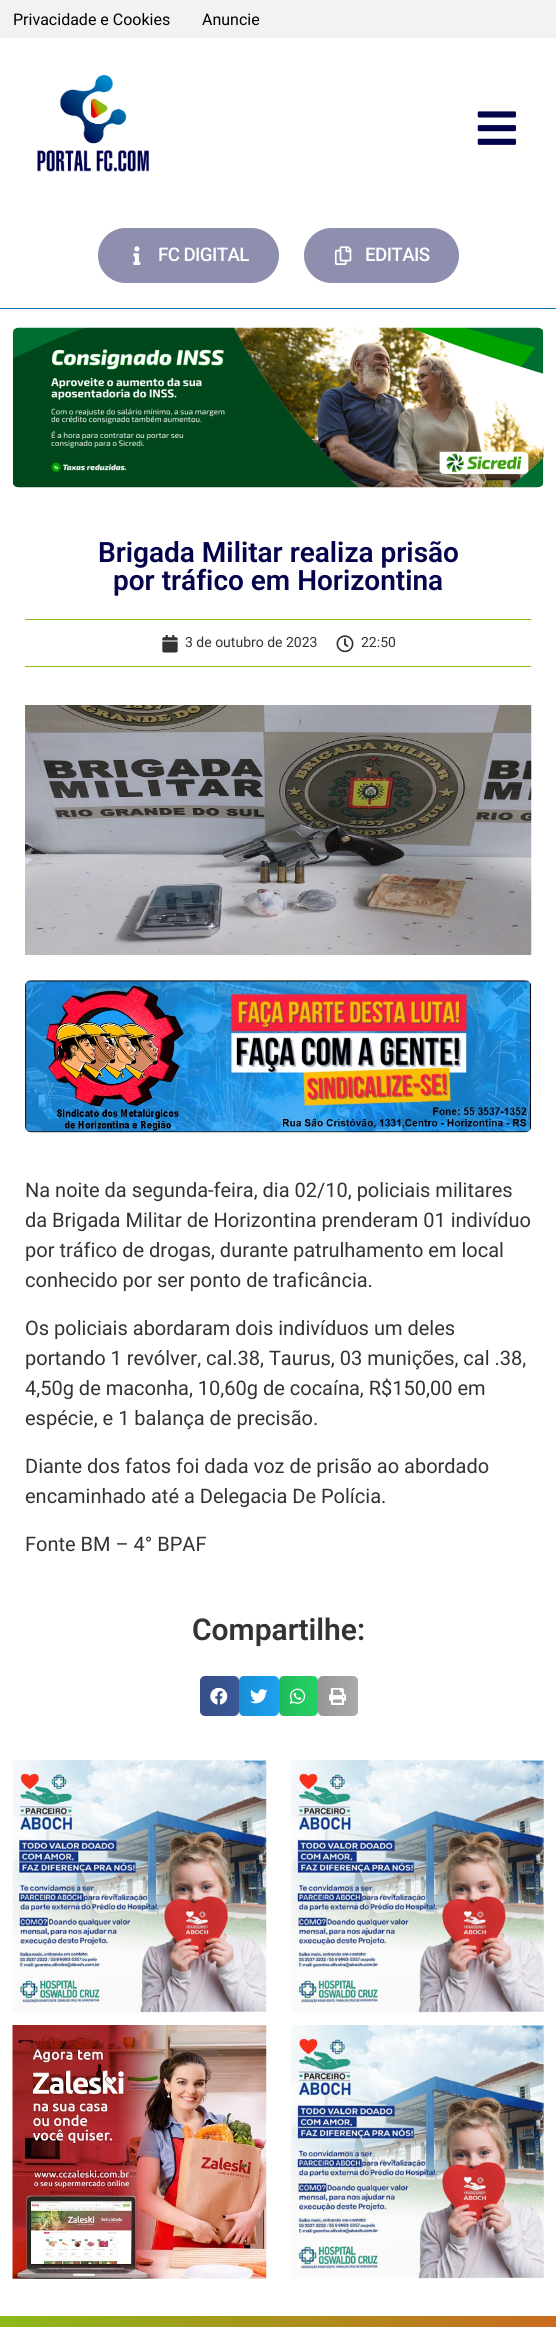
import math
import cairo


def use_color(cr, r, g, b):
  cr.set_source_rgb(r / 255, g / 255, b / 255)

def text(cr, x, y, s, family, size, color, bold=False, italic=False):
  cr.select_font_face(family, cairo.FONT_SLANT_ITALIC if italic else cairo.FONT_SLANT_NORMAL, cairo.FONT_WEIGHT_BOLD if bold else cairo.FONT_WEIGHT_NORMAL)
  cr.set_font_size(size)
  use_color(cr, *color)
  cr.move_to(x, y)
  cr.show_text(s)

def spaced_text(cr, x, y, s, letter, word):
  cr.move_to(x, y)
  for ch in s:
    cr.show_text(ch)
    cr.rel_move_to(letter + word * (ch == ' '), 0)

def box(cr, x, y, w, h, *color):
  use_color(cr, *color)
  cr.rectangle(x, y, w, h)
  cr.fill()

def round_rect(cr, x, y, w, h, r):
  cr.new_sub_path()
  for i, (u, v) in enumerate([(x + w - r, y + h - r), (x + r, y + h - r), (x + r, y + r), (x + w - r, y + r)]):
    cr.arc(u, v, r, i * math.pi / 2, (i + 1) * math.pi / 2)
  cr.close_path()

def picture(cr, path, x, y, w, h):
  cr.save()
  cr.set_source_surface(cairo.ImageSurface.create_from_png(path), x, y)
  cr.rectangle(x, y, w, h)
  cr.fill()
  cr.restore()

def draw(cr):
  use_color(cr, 255, 255, 255)
  cr.paint()
  box(cr, 0, 0, 556, 38, 242, 242, 242)
  box(cr, 0, 308, 556, 1, 4, 115, 182)
  picture(cr, "img_01.png", 37, 75, 112, 97)
  picture(cr, "img_02.png", 477, 111, 39, 34)
  use_color(cr, 142, 142, 174)
  round_rect(cr, 98, 228, 181, 55, 27.5)
  cr.fill()
  picture(cr, "img_03.png", 133, 246, 8, 19)
  round_rect(cr, 304, 228, 155, 55, 27.5)
  cr.fill()
  picture(cr, "img_04.png", 334, 246, 18, 19)
  picture(cr, "img_05.png", 12, 327, 532, 161)
  box(cr, 25, 619, 506, 1, 139, 186, 25)
  box(cr, 25, 666, 506, 1, 139, 186, 25)
  picture(cr, "img_06.png", 162, 635, 16, 18)
  picture(cr, "img_07.png", 336, 635, 18, 18)
  picture(cr, "img_08.png", 25, 705, 507, 250)
  picture(cr, "img_09.png", 25, 980, 507, 153)
  use_color(cr, 59, 89, 152)
  round_rect(cr, 200, 1676, 39, 40, 5)
  cr.fill()
  gradient = cairo.LinearGradient(200, 1696, 239, 1696)
  gradient.add_color_stop_rgba(0, 0, 0, 0, 0.12)
  gradient.add_color_stop_rgba(1, 0, 0, 0, 0)
  cr.set_source(gradient)
  round_rect(cr, 200, 1676, 39, 40, 5)
  cr.fill()
  picture(cr, "img_10.png", 210, 1688, 18, 17)
  use_color(cr, 29, 161, 242)
  round_rect(cr, 239, 1676, 40, 40, 5)
  cr.fill()
  gradient = cairo.LinearGradient(239, 1696, 279, 1696)
  gradient.add_color_stop_rgba(0, 0, 0, 0, 0.12)
  gradient.add_color_stop_rgba(1, 0, 0, 0, 0)
  cr.set_source(gradient)
  round_rect(cr, 239, 1676, 40, 40, 5)
  cr.fill()
  picture(cr, "img_11.png", 250, 1689, 18, 15)
  use_color(cr, 37, 211, 102)
  round_rect(cr, 279, 1676, 39, 40, 5)
  cr.fill()
  gradient = cairo.LinearGradient(279, 1696, 318, 1696)
  gradient.add_color_stop_rgba(0, 0, 0, 0, 0.12)
  gradient.add_color_stop_rgba(1, 0, 0, 0, 0)
  cr.set_source(gradient)
  round_rect(cr, 279, 1676, 39, 40, 5)
  cr.fill()
  picture(cr, "img_12.png", 289, 1688, 17, 16)
  use_color(cr, 170, 170, 170)
  round_rect(cr, 318, 1676, 40, 40, 5)
  cr.fill()
  gradient = cairo.LinearGradient(318, 1696, 358, 1696)
  gradient.add_color_stop_rgba(0, 0, 0, 0, 0.12)
  gradient.add_color_stop_rgba(1, 0, 0, 0, 0)
  cr.set_source(gradient)
  round_rect(cr, 318, 1676, 40, 40, 5)
  cr.fill()
  picture(cr, "img_13.png", 329, 1688, 17, 17)
  picture(cr, "img_14.png", 12, 1760, 255, 253)
  picture(cr, "img_15.png", 12, 2025, 255, 254)
  picture(cr, "img_16.png", 291, 1760, 253, 253)
  picture(cr, "img_17.png", 291, 2025, 253, 254)
  gradient = cairo.LinearGradient(49, 2258, 508, 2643)
  gradient.add_color_stop_rgba(0, 0.545, 0.729, 0.098, 1)
  gradient.add_color_stop_rgba(1, 0.886, 0.298, 0.133, 1)
  cr.set_source(gradient)
  cr.rectangle(0, 2316, 556, 11)
  cr.fill()
  text(cr, 13, 25, "Privacidade e Cookies", "Roboto", 16, (0, 0, 0))
  text(cr, 202, 25, "Anuncie", "Roboto", 16, (0, 0, 0))
  cr.select_font_face("Roboto Medium")
  cr.set_font_size(18.75)
  use_color(cr, 255, 255, 255)
  spaced_text(cr, 158, 261, "FC DIGITAL", -0.6, 0)
  spaced_text(cr, 365, 261, "EDITAIS", -0.6, 0)
  text(cr, 98, 562, "Brigada Militar realiza prisão", "Roboto SemiBold", 28, (4, 4, 76))
  text(cr, 113, 590, "por tráfico em Horizontina", "Roboto SemiBold", 28, (4, 4, 76))
  text(cr, 185, 647, "3 de outubro de 2023", "Roboto", 14, (51, 51, 51))
  text(cr, 361, 647, "22:50", "Roboto", 14, (51, 51, 51))
  text(cr, 25, 1197, "Na noite da segunda-feira, dia 02/10, policiais militares", "Roboto", 20, (51, 51, 51))
  text(cr, 25, 1227, "da Brigada Militar de Horizontina prenderam 01 indivíduo", "Roboto", 20, (51, 51, 51))
  text(cr, 25, 1257, "por tráfico de drogas, durante patrulhamento em local", "Roboto", 20, (51, 51, 51))
  text(cr, 25, 1287, "conhecido por ser ponto de traficância.", "Roboto", 20, (51, 51, 51))
  text(cr, 25, 1335, "Os policiais abordaram dois indivíduos um deles", "Roboto", 20, (51, 51, 51))
  text(cr, 25, 1365, "portando 1 revólver, cal.38, Taurus, 03 munições, cal .38,", "Roboto", 20, (51, 51, 51))
  text(cr, 25, 1395, "4,50g de maconha, 10,60g de cocaína, R$150,00 em", "Roboto", 20, (51, 51, 51))
  text(cr, 25, 1425, "espécie, e 1 balança de precisão.", "Roboto", 20, (51, 51, 51))
  text(cr, 25, 1473, "Diante dos fatos foi dada voz de prisão ao abordado", "Roboto", 20, (51, 51, 51))
  text(cr, 25, 1503, "encaminhado até a Delegacia De Polícia.", "Roboto", 20, (51, 51, 51))
  text(cr, 25, 1551, "Fonte BM – 4° BPAF", "Roboto", 20, (51, 51, 51))
  text(cr, 192, 1640, "Compartilhe:", "Roboto SemiBold", 30, (51, 51, 51))


surface = cairo.ImageSurface(cairo.FORMAT_RGB24, 556, 2327)
cr = cairo.Context(surface)
options = cairo.FontOptions()
options.set_hint_metrics(cairo.HINT_METRICS_OFF)
options.set_hint_style(cairo.HINT_STYLE_NONE)
cr.set_font_options(options)
cr.set_miter_limit(4)
draw(cr)
surface.write_to_png("out.png")
